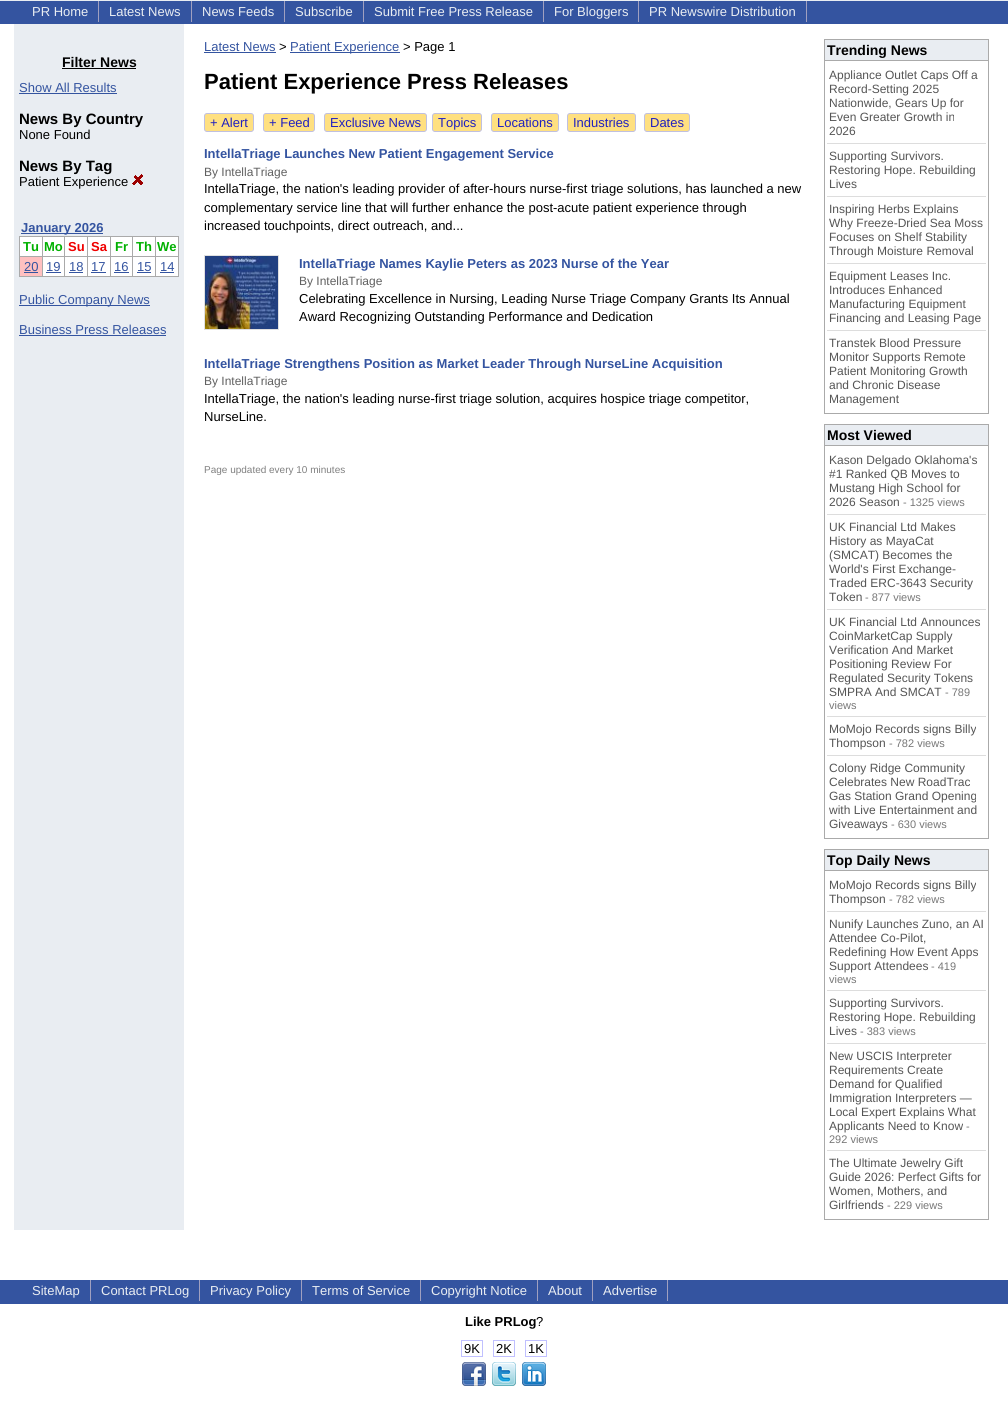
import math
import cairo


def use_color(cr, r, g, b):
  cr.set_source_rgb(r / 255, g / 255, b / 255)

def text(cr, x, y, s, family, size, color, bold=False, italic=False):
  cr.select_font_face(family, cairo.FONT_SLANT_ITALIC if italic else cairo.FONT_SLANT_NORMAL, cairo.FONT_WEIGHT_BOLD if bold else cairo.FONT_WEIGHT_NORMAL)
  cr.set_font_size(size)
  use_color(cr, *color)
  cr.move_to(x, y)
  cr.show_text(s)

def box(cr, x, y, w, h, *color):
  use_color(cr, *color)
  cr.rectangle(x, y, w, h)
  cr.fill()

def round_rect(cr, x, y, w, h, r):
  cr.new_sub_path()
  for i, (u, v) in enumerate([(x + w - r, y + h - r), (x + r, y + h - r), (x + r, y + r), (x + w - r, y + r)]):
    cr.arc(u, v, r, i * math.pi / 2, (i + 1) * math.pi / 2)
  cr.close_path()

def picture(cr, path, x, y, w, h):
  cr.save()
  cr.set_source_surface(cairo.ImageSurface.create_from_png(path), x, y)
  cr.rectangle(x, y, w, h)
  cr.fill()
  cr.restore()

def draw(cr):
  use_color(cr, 255, 255, 255)
  cr.paint()
  box(cr, 0, 0, 1008, 1, 233, 237, 242)
  box(cr, 0, 1, 1008, 23, 52, 84, 160)
  box(cr, 98, 1, 1, 21, 160, 160, 192)
  box(cr, 191, 1, 1, 21, 160, 160, 192)
  box(cr, 284, 1, 1, 21, 160, 160, 192)
  box(cr, 363, 1, 1, 21, 160, 160, 192)
  box(cr, 543, 1, 1, 21, 160, 160, 192)
  box(cr, 638, 1, 1, 21, 160, 160, 192)
  box(cr, 806, 1, 1, 21, 160, 160, 192)
  box(cr, 14, 24, 170, 1206, 233, 237, 242)
  box(cr, 62, 68, 74, 1, 0, 0, 0)
  box(cr, 19, 93, 98, 1, 52, 84, 160)
  picture(cr, "img_01.png", 132, 174, 11, 11)
  box(cr, 21, 233, 82, 1, 52, 84, 160)
  box(cr, 20, 237, 22, 19, 255, 255, 255)
  box(cr, 155, 236, 24, 1, 170, 170, 170)
  box(cr, 155, 256, 24, 1, 170, 170, 170)
  box(cr, 178, 256, 1, 21, 170, 170, 170)
  box(cr, 155, 276, 24, 1, 170, 170, 170)
  box(cr, 155, 256, 1, 21, 170, 170, 170)
  box(cr, 132, 256, 24, 1, 170, 170, 170)
  box(cr, 155, 236, 1, 21, 170, 170, 170)
  box(cr, 132, 236, 24, 1, 170, 170, 170)
  box(cr, 132, 276, 24, 1, 170, 170, 170)
  box(cr, 132, 256, 1, 21, 170, 170, 170)
  box(cr, 110, 256, 23, 1, 170, 170, 170)
  box(cr, 132, 236, 1, 21, 170, 170, 170)
  box(cr, 110, 236, 23, 1, 170, 170, 170)
  box(cr, 110, 276, 23, 1, 170, 170, 170)
  box(cr, 110, 256, 1, 21, 170, 170, 170)
  box(cr, 87, 256, 24, 1, 170, 170, 170)
  box(cr, 110, 236, 1, 21, 170, 170, 170)
  box(cr, 87, 236, 24, 1, 170, 170, 170)
  box(cr, 87, 276, 24, 1, 170, 170, 170)
  box(cr, 87, 256, 1, 21, 170, 170, 170)
  box(cr, 64, 256, 24, 1, 170, 170, 170)
  box(cr, 87, 236, 1, 21, 170, 170, 170)
  box(cr, 64, 236, 24, 1, 170, 170, 170)
  box(cr, 64, 276, 24, 1, 170, 170, 170)
  box(cr, 64, 256, 1, 21, 170, 170, 170)
  box(cr, 42, 256, 23, 1, 170, 170, 170)
  box(cr, 64, 236, 1, 21, 170, 170, 170)
  box(cr, 42, 236, 23, 1, 170, 170, 170)
  box(cr, 42, 276, 23, 1, 170, 170, 170)
  box(cr, 42, 256, 1, 21, 170, 170, 170)
  box(cr, 19, 256, 24, 1, 170, 170, 170)
  box(cr, 42, 236, 1, 21, 170, 170, 170)
  box(cr, 19, 236, 24, 1, 170, 170, 170)
  box(cr, 19, 276, 24, 1, 170, 170, 170)
  box(cr, 19, 256, 1, 21, 170, 170, 170)
  box(cr, 19, 236, 1, 21, 170, 170, 170)
  box(cr, 43, 237, 21, 19, 255, 255, 255)
  box(cr, 65, 237, 22, 19, 255, 255, 255)
  box(cr, 88, 237, 22, 19, 255, 255, 255)
  box(cr, 111, 237, 21, 19, 255, 255, 255)
  box(cr, 133, 237, 22, 19, 255, 255, 255)
  box(cr, 156, 237, 22, 19, 255, 255, 255)
  box(cr, 178, 236, 1, 21, 170, 170, 170)
  box(cr, 20, 257, 22, 19, 255, 192, 192)
  box(cr, 24, 272, 14, 1, 52, 84, 160)
  box(cr, 43, 257, 21, 19, 255, 255, 255)
  box(cr, 46, 272, 15, 1, 52, 84, 160)
  box(cr, 65, 257, 22, 19, 255, 255, 255)
  box(cr, 69, 272, 14, 1, 52, 84, 160)
  box(cr, 88, 257, 22, 19, 255, 255, 255)
  box(cr, 91, 272, 15, 1, 52, 84, 160)
  box(cr, 111, 257, 21, 19, 255, 255, 255)
  box(cr, 114, 272, 15, 1, 52, 84, 160)
  box(cr, 133, 257, 22, 19, 255, 255, 255)
  box(cr, 137, 272, 14, 1, 52, 84, 160)
  box(cr, 156, 257, 22, 19, 255, 255, 255)
  box(cr, 160, 272, 14, 1, 52, 84, 160)
  box(cr, 19, 305, 131, 1, 52, 84, 160)
  box(cr, 19, 335, 147, 1, 52, 84, 160)
  box(cr, 204, 52, 72, 1, 52, 84, 160)
  box(cr, 290, 52, 110, 1, 52, 84, 160)
  use_color(cr, 255, 224, 128)
  round_rect(cr, 204.5, 113.5, 49, 18, 2.5)
  cr.fill_preserve()
  use_color(cr, 192, 192, 224)
  cr.set_line_width(1)
  cr.stroke()
  use_color(cr, 255, 224, 128)
  round_rect(cr, 263.5, 113.5, 51, 18, 2.5)
  cr.fill_preserve()
  use_color(cr, 192, 192, 224)
  cr.stroke()
  use_color(cr, 255, 224, 128)
  round_rect(cr, 324.5, 113.5, 102, 18, 2.5)
  cr.fill_preserve()
  use_color(cr, 192, 192, 224)
  cr.stroke()
  use_color(cr, 255, 224, 128)
  round_rect(cr, 432.5, 113.5, 49, 18, 2.5)
  cr.fill_preserve()
  use_color(cr, 192, 192, 224)
  cr.stroke()
  use_color(cr, 255, 224, 128)
  round_rect(cr, 491.5, 113.5, 67, 18, 2.5)
  cr.fill_preserve()
  use_color(cr, 192, 192, 224)
  cr.stroke()
  use_color(cr, 255, 224, 128)
  round_rect(cr, 567.5, 113.5, 68, 18, 2.5)
  cr.fill_preserve()
  use_color(cr, 192, 192, 224)
  cr.stroke()
  use_color(cr, 255, 224, 128)
  round_rect(cr, 644.5, 113.5, 45, 18, 2.5)
  cr.fill_preserve()
  use_color(cr, 192, 192, 224)
  cr.stroke()
  cr.rectangle(204.5, 255.5, 74, 74)
  use_color(cr, 224, 224, 224)
  cr.stroke()
  picture(cr, "img_02.png", 205, 256, 73, 73)
  box(cr, 825, 40, 163, 20, 233, 237, 242)
  box(cr, 824, 39, 165, 1, 170, 170, 170)
  box(cr, 824, 60, 165, 1, 170, 170, 170)
  box(cr, 988, 60, 1, 354, 170, 170, 170)
  box(cr, 988, 39, 1, 22, 170, 170, 170)
  box(cr, 824, 413, 165, 1, 170, 170, 170)
  box(cr, 824, 60, 1, 354, 170, 170, 170)
  box(cr, 824, 39, 1, 22, 170, 170, 170)
  box(cr, 827, 143, 159, 1, 221, 221, 221)
  box(cr, 827, 196, 159, 1, 221, 221, 221)
  box(cr, 827, 263, 159, 1, 221, 221, 221)
  box(cr, 827, 330, 159, 1, 221, 221, 221)
  box(cr, 825, 425, 163, 20, 233, 237, 242)
  box(cr, 824, 424, 165, 1, 170, 170, 170)
  box(cr, 824, 445, 165, 1, 170, 170, 170)
  box(cr, 988, 445, 1, 394, 170, 170, 170)
  box(cr, 988, 424, 1, 22, 170, 170, 170)
  box(cr, 824, 838, 165, 1, 170, 170, 170)
  box(cr, 824, 445, 1, 394, 170, 170, 170)
  box(cr, 824, 424, 1, 22, 170, 170, 170)
  box(cr, 827, 514, 159, 1, 221, 221, 221)
  box(cr, 827, 609, 159, 1, 221, 221, 221)
  box(cr, 827, 716, 159, 1, 221, 221, 221)
  box(cr, 827, 755, 159, 1, 221, 221, 221)
  box(cr, 825, 850, 163, 20, 233, 237, 242)
  box(cr, 824, 849, 165, 1, 170, 170, 170)
  box(cr, 824, 870, 165, 1, 170, 170, 170)
  box(cr, 988, 870, 1, 350, 170, 170, 170)
  box(cr, 988, 849, 1, 22, 170, 170, 170)
  box(cr, 824, 1219, 165, 1, 170, 170, 170)
  box(cr, 824, 870, 1, 350, 170, 170, 170)
  box(cr, 824, 849, 1, 22, 170, 170, 170)
  box(cr, 827, 911, 159, 1, 221, 221, 221)
  box(cr, 827, 990, 159, 1, 221, 221, 221)
  box(cr, 827, 1043, 159, 1, 221, 221, 221)
  box(cr, 827, 1150, 159, 1, 221, 221, 221)
  box(cr, 0, 1280, 1008, 24, 52, 84, 160)
  box(cr, 90, 1280, 1, 21, 160, 160, 192)
  box(cr, 199, 1280, 1, 21, 160, 160, 192)
  box(cr, 301, 1280, 1, 21, 160, 160, 192)
  box(cr, 420, 1280, 1, 21, 160, 160, 192)
  box(cr, 537, 1280, 1, 21, 160, 160, 192)
  box(cr, 592, 1280, 1, 21, 160, 160, 192)
  box(cr, 667, 1280, 1, 21, 160, 160, 192)
  cr.rectangle(461.5, 1340.5, 21, 16)
  use_color(cr, 192, 192, 255)
  cr.stroke()
  cr.rectangle(493.5, 1340.5, 21, 16)
  cr.stroke()
  cr.rectangle(525.5, 1340.5, 21, 16)
  cr.stroke()
  picture(cr, "img_03.png", 462, 1362, 84, 24)
  text(cr, 32, 16, "PR Home", "Liberation Sans", 13, (233, 237, 242))
  text(cr, 109, 16, "Latest News", "Liberation Sans", 13, (233, 237, 242))
  text(cr, 202, 16, "News Feeds", "Liberation Sans", 13, (233, 237, 242))
  text(cr, 295, 16, "Subscribe", "Liberation Sans", 13, (233, 237, 242))
  text(cr, 374, 16, "Submit Free Press Release", "Liberation Sans", 13, (233, 237, 242))
  text(cr, 554, 16, "For Bloggers", "Liberation Sans", 13, (233, 237, 242))
  text(cr, 649, 16, "PR Newswire Distribution", "Liberation Sans", 13, (233, 237, 242))
  text(cr, 62, 67, "Filter News", "Liberation Sans", 14, (0, 0, 0), bold=True)
  text(cr, 19, 92, "Show All Results", "Liberation Sans", 13, (52, 84, 160))
  text(cr, 19, 124, "News By Country", "Liberation Sans", 15, (0, 0, 0), bold=True)
  text(cr, 19, 139, "None Found", "Liberation Sans", 13, (0, 0, 0))
  text(cr, 19, 171, "News By Tag", "Liberation Sans", 15, (0, 0, 0), bold=True)
  text(cr, 19, 186, "Patient Experience", "Liberation Sans", 13, (0, 0, 0))
  text(cr, 21, 232, "January 2026", "Liberation Sans", 13, (52, 84, 160), bold=True)
  text(cr, 23, 251, "Tu", "Liberation Sans", 13, (0, 176, 0), bold=True)
  text(cr, 44, 251, "Mo", "Liberation Sans", 13, (0, 176, 0), bold=True)
  text(cr, 68, 251, "Su", "Liberation Sans", 13, (240, 0, 0), bold=True)
  text(cr, 91, 251, "Sa", "Liberation Sans", 13, (240, 0, 0), bold=True)
  text(cr, 115, 251, "Fr", "Liberation Sans", 13, (0, 176, 0), bold=True)
  text(cr, 136, 251, "Th", "Liberation Sans", 13, (0, 176, 0), bold=True)
  text(cr, 157, 251, "We", "Liberation Sans", 13, (0, 176, 0), bold=True)
  text(cr, 24, 271, "20", "Liberation Sans", 13, (52, 84, 160))
  text(cr, 46, 271, "19", "Liberation Sans", 13, (52, 84, 160))
  text(cr, 69, 271, "18", "Liberation Sans", 13, (52, 84, 160))
  text(cr, 91, 271, "17", "Liberation Sans", 13, (52, 84, 160))
  text(cr, 114, 271, "16", "Liberation Sans", 13, (52, 84, 160))
  text(cr, 137, 271, "15", "Liberation Sans", 13, (52, 84, 160))
  text(cr, 160, 271, "14", "Liberation Sans", 13, (52, 84, 160))
  text(cr, 19, 304, "Public Company News", "Liberation Sans", 13, (52, 84, 160))
  text(cr, 19, 334, "Business Press Releases", "Liberation Sans", 13, (52, 84, 160))
  text(cr, 204, 51, "Latest News", "Liberation Sans", 13, (52, 84, 160))
  text(cr, 279, 51, ">", "Liberation Sans", 13, (0, 0, 0))
  text(cr, 290, 51, "Patient Experience", "Liberation Sans", 13, (52, 84, 160))
  text(cr, 403, 51, "> Page 1", "Liberation Sans", 13, (0, 0, 0))
  text(cr, 204, 89, "Patient Experience Press Releases", "Liberation Sans", 22, (0, 0, 0), bold=True)
  text(cr, 210, 127, "+ Alert", "Liberation Sans", 13, (32, 32, 192))
  text(cr, 269, 127, "+ Feed", "Liberation Sans", 13, (32, 32, 192))
  text(cr, 330, 127, "Exclusive News", "Liberation Sans", 13, (32, 32, 192))
  text(cr, 438, 127, "Topics", "Liberation Sans", 13, (32, 32, 192))
  text(cr, 497, 127, "Locations", "Liberation Sans", 13, (32, 32, 192))
  text(cr, 573, 127, "Industries", "Liberation Sans", 13, (32, 32, 192))
  text(cr, 650, 127, "Dates", "Liberation Sans", 13, (32, 32, 192))
  text(cr, 204, 158, "IntellaTriage Launches New Patient Engagement Service", "Liberation Sans", 13, (52, 84, 160), bold=True)
  text(cr, 204, 176, "By IntellaTriage", "Liberation Sans", 12, (96, 96, 96))
  text(cr, 204, 193, "IntellaTriage, the nation's leading provider of after-hours nurse-first triage solutions, has launched a new", "Liberation Sans", 13, (0, 0, 0))
  text(cr, 204, 212, "complementary service line that will further enhance the post-acute patient experience through", "Liberation Sans", 13, (0, 0, 0))
  text(cr, 204, 230, "increased touchpoints, direct outreach, and...", "Liberation Sans", 13, (0, 0, 0))
  text(cr, 299, 268, "IntellaTriage Names Kaylie Peters as 2023 Nurse of the Year", "Liberation Sans", 13, (52, 84, 160), bold=True)
  text(cr, 299, 285, "By IntellaTriage", "Liberation Sans", 12, (96, 96, 96))
  text(cr, 299, 303, "Celebrating Excellence in Nursing, Leading Nurse Triage Company Grants Its Annual", "Liberation Sans", 13, (0, 0, 0))
  text(cr, 299, 321, "Award Recognizing Outstanding Performance and Dedication", "Liberation Sans", 13, (0, 0, 0))
  text(cr, 204, 368, "IntellaTriage Strengthens Position as Market Leader Through NurseLine Acquisition", "Liberation Sans", 13, (52, 84, 160), bold=True)
  text(cr, 204, 385, "By IntellaTriage", "Liberation Sans", 12, (96, 96, 96))
  text(cr, 204, 403, "IntellaTriage, the nation's leading nurse-first triage solution, acquires hospice triage competitor,", "Liberation Sans", 13, (0, 0, 0))
  text(cr, 204, 421, "NurseLine.", "Liberation Sans", 13, (0, 0, 0))
  text(cr, 204, 473, "Page updated every 10 minutes", "Liberation Sans", 10, (128, 128, 128))
  text(cr, 827, 55, "Trending News", "Liberation Sans", 14, (0, 0, 0), bold=True)
  text(cr, 829, 79, "Appliance Outlet Caps Off a", "Liberation Sans", 12, (85, 85, 85))
  text(cr, 829, 93, "Record-Setting 2025", "Liberation Sans", 12, (85, 85, 85))
  text(cr, 829, 107, "Nationwide, Gears Up for", "Liberation Sans", 12, (85, 85, 85))
  text(cr, 829, 121, "Even Greater Growth in", "Liberation Sans", 12, (85, 85, 85))
  text(cr, 829, 135, "2026", "Liberation Sans", 12, (85, 85, 85))
  text(cr, 829, 160, "Supporting Survivors.", "Liberation Sans", 12, (85, 85, 85))
  text(cr, 829, 174, "Restoring Hope. Rebuilding", "Liberation Sans", 12, (85, 85, 85))
  text(cr, 829, 188, "Lives", "Liberation Sans", 12, (85, 85, 85))
  text(cr, 829, 213, "Inspiring Herbs Explains", "Liberation Sans", 12, (85, 85, 85))
  text(cr, 829, 227, "Why Freeze-Dried Sea Moss", "Liberation Sans", 12, (85, 85, 85))
  text(cr, 829, 241, "Focuses on Shelf Stability", "Liberation Sans", 12, (85, 85, 85))
  text(cr, 829, 255, "Through Moisture Removal", "Liberation Sans", 12, (85, 85, 85))
  text(cr, 829, 280, "Equipment Leases Inc.", "Liberation Sans", 12, (85, 85, 85))
  text(cr, 829, 294, "Introduces Enhanced", "Liberation Sans", 12, (85, 85, 85))
  text(cr, 829, 308, "Manufacturing Equipment", "Liberation Sans", 12, (85, 85, 85))
  text(cr, 829, 322, "Financing and Leasing Page", "Liberation Sans", 12, (85, 85, 85))
  text(cr, 829, 347, "Transtek Blood Pressure", "Liberation Sans", 12, (85, 85, 85))
  text(cr, 829, 361, "Monitor Supports Remote", "Liberation Sans", 12, (85, 85, 85))
  text(cr, 829, 375, "Patient Monitoring Growth", "Liberation Sans", 12, (85, 85, 85))
  text(cr, 829, 389, "and Chronic Disease", "Liberation Sans", 12, (85, 85, 85))
  text(cr, 829, 403, "Management", "Liberation Sans", 12, (85, 85, 85))
  text(cr, 827, 440, "Most Viewed", "Liberation Sans", 14, (0, 0, 0), bold=True)
  text(cr, 829, 464, "Kason Delgado Oklahoma's", "Liberation Sans", 12, (85, 85, 85))
  text(cr, 829, 478, "#1 Ranked QB Moves to", "Liberation Sans", 12, (85, 85, 85))
  text(cr, 829, 492, "Mustang High School for", "Liberation Sans", 12, (85, 85, 85))
  text(cr, 829, 506, "2026 Season", "Liberation Sans", 12, (85, 85, 85))
  text(cr, 903, 506, "- 1325 views", "Liberation Sans", 11, (119, 119, 119))
  text(cr, 829, 531, "UK Financial Ltd Makes", "Liberation Sans", 12, (85, 85, 85))
  text(cr, 829, 545, "History as MayaCat", "Liberation Sans", 12, (85, 85, 85))
  text(cr, 829, 559, "(SMCAT) Becomes the", "Liberation Sans", 12, (85, 85, 85))
  text(cr, 829, 573, "World's First Exchange-", "Liberation Sans", 12, (85, 85, 85))
  text(cr, 829, 587, "Traded ERC-3643 Security", "Liberation Sans", 12, (85, 85, 85))
  text(cr, 829, 601, "Token", "Liberation Sans", 12, (85, 85, 85))
  text(cr, 865, 601, "- 877 views", "Liberation Sans", 11, (119, 119, 119))
  text(cr, 829, 626, "UK Financial Ltd Announces", "Liberation Sans", 12, (85, 85, 85))
  text(cr, 829, 640, "CoinMarketCap Supply", "Liberation Sans", 12, (85, 85, 85))
  text(cr, 829, 654, "Verification And Market", "Liberation Sans", 12, (85, 85, 85))
  text(cr, 829, 668, "Positioning Review For", "Liberation Sans", 12, (85, 85, 85))
  text(cr, 829, 682, "Regulated Security Tokens", "Liberation Sans", 12, (85, 85, 85))
  text(cr, 829, 696, "SMPRA And SMCAT", "Liberation Sans", 12, (85, 85, 85))
  text(cr, 945, 696, "- 789", "Liberation Sans", 11, (119, 119, 119))
  text(cr, 829, 709, "views", "Liberation Sans", 11, (119, 119, 119))
  text(cr, 829, 733, "MoMojo Records signs Billy", "Liberation Sans", 12, (85, 85, 85))
  text(cr, 829, 747, "Thompson", "Liberation Sans", 12, (85, 85, 85))
  text(cr, 889, 747, "- 782 views", "Liberation Sans", 11, (119, 119, 119))
  text(cr, 829, 772, "Colony Ridge Community", "Liberation Sans", 12, (85, 85, 85))
  text(cr, 829, 786, "Celebrates New RoadTrac", "Liberation Sans", 12, (85, 85, 85))
  text(cr, 829, 800, "Gas Station Grand Opening", "Liberation Sans", 12, (85, 85, 85))
  text(cr, 829, 814, "with Live Entertainment and", "Liberation Sans", 12, (85, 85, 85))
  text(cr, 829, 828, "Giveaways", "Liberation Sans", 12, (85, 85, 85))
  text(cr, 891, 828, "- 630 views", "Liberation Sans", 11, (119, 119, 119))
  text(cr, 827, 865, "Top Daily News", "Liberation Sans", 14, (0, 0, 0), bold=True)
  text(cr, 829, 889, "MoMojo Records signs Billy", "Liberation Sans", 12, (85, 85, 85))
  text(cr, 829, 903, "Thompson", "Liberation Sans", 12, (85, 85, 85))
  text(cr, 889, 903, "- 782 views", "Liberation Sans", 11, (119, 119, 119))
  text(cr, 829, 928, "Nunify Launches Zuno, an AI", "Liberation Sans", 12, (85, 85, 85))
  text(cr, 829, 942, "Attendee Co-Pilot,", "Liberation Sans", 12, (85, 85, 85))
  text(cr, 829, 956, "Redefining How Event Apps", "Liberation Sans", 12, (85, 85, 85))
  text(cr, 829, 970, "Support Attendees", "Liberation Sans", 12, (85, 85, 85))
  text(cr, 931, 970, "- 419", "Liberation Sans", 11, (119, 119, 119))
  text(cr, 829, 983, "views", "Liberation Sans", 11, (119, 119, 119))
  text(cr, 829, 1007, "Supporting Survivors.", "Liberation Sans", 12, (85, 85, 85))
  text(cr, 829, 1021, "Restoring Hope. Rebuilding", "Liberation Sans", 12, (85, 85, 85))
  text(cr, 829, 1035, "Lives", "Liberation Sans", 12, (85, 85, 85))
  text(cr, 860, 1035, "- 383 views", "Liberation Sans", 11, (119, 119, 119))
  text(cr, 829, 1060, "New USCIS Interpreter", "Liberation Sans", 12, (85, 85, 85))
  text(cr, 829, 1074, "Requirements Create", "Liberation Sans", 12, (85, 85, 85))
  text(cr, 829, 1088, "Demand for Qualified", "Liberation Sans", 12, (85, 85, 85))
  text(cr, 829, 1102, "Immigration Interpreters —", "Liberation Sans", 12, (85, 85, 85))
  text(cr, 829, 1116, "Local Expert Explains What", "Liberation Sans", 12, (85, 85, 85))
  text(cr, 829, 1130, "Applicants Need to Know", "Liberation Sans", 12, (85, 85, 85))
  text(cr, 966, 1130, "-", "Liberation Sans", 11, (119, 119, 119))
  text(cr, 829, 1143, "292 views", "Liberation Sans", 11, (119, 119, 119))
  text(cr, 829, 1167, "The Ultimate Jewelry Gift", "Liberation Sans", 12, (85, 85, 85))
  text(cr, 829, 1181, "Guide 2026: Perfect Gifts for", "Liberation Sans", 12, (85, 85, 85))
  text(cr, 829, 1195, "Women, Mothers, and", "Liberation Sans", 12, (85, 85, 85))
  text(cr, 829, 1209, "Girlfriends", "Liberation Sans", 12, (85, 85, 85))
  text(cr, 887, 1209, "- 229 views", "Liberation Sans", 11, (119, 119, 119))
  text(cr, 32, 1295, "SiteMap", "Liberation Sans", 13, (233, 237, 242))
  text(cr, 101, 1295, "Contact PRLog", "Liberation Sans", 13, (233, 237, 242))
  text(cr, 210, 1295, "Privacy Policy", "Liberation Sans", 13, (233, 237, 242))
  text(cr, 312, 1295, "Terms of Service", "Liberation Sans", 13, (233, 237, 242))
  text(cr, 431, 1295, "Copyright Notice", "Liberation Sans", 13, (233, 237, 242))
  text(cr, 548, 1295, "About", "Liberation Sans", 13, (233, 237, 242))
  text(cr, 603, 1295, "Advertise", "Liberation Sans", 13, (233, 237, 242))
  text(cr, 465, 1326, "Like PRLog", "Liberation Sans", 13, (0, 0, 0), bold=True)
  text(cr, 536, 1326, "?", "Liberation Sans", 13, (0, 0, 0))
  text(cr, 464, 1353, "9K", "Liberation Sans", 13, (0, 0, 0))
  text(cr, 496, 1353, "2K", "Liberation Sans", 13, (0, 0, 0))
  text(cr, 528, 1353, "1K", "Liberation Sans", 13, (0, 0, 0))


surface = cairo.ImageSurface(cairo.FORMAT_RGB24, 1008, 1410)
cr = cairo.Context(surface)
options = cairo.FontOptions()
options.set_hint_metrics(cairo.HINT_METRICS_OFF)
options.set_hint_style(cairo.HINT_STYLE_NONE)
cr.set_font_options(options)
cr.set_miter_limit(4)
draw(cr)
surface.write_to_png("out.png")
